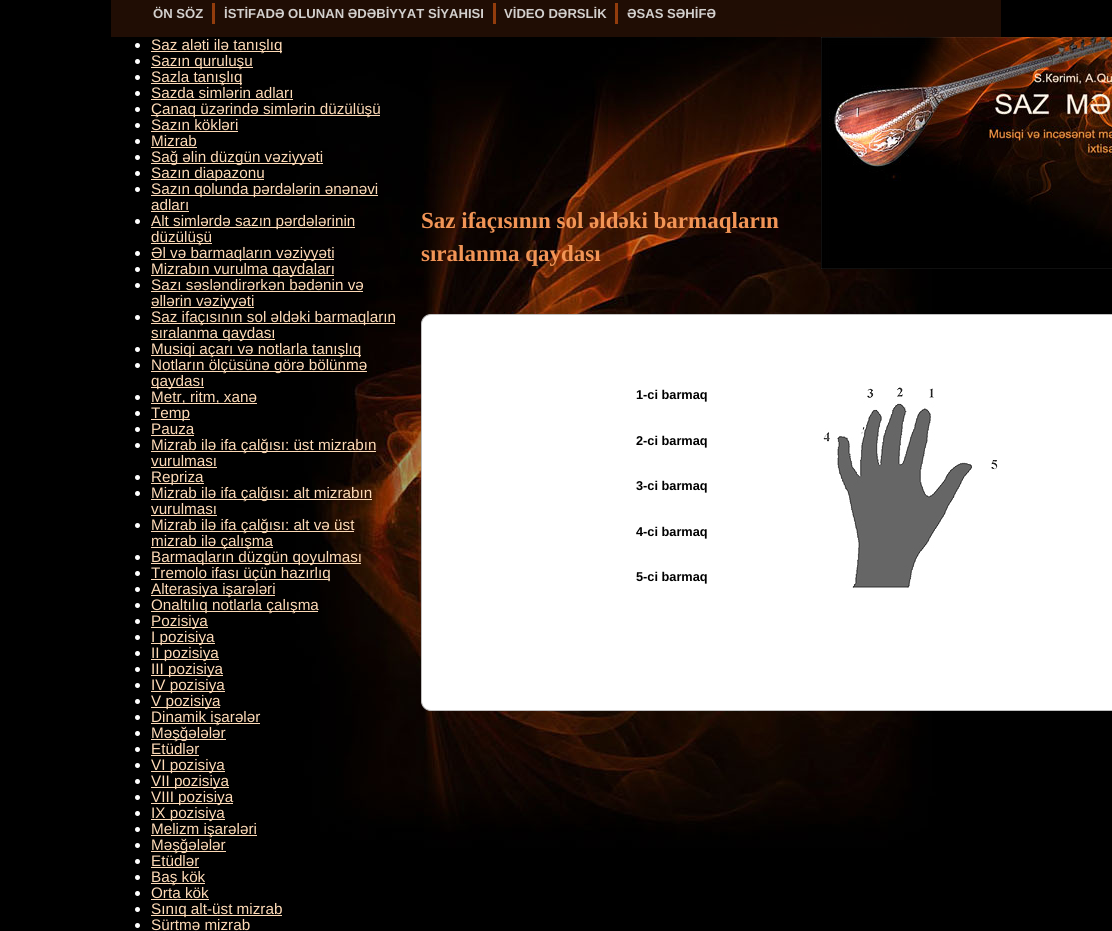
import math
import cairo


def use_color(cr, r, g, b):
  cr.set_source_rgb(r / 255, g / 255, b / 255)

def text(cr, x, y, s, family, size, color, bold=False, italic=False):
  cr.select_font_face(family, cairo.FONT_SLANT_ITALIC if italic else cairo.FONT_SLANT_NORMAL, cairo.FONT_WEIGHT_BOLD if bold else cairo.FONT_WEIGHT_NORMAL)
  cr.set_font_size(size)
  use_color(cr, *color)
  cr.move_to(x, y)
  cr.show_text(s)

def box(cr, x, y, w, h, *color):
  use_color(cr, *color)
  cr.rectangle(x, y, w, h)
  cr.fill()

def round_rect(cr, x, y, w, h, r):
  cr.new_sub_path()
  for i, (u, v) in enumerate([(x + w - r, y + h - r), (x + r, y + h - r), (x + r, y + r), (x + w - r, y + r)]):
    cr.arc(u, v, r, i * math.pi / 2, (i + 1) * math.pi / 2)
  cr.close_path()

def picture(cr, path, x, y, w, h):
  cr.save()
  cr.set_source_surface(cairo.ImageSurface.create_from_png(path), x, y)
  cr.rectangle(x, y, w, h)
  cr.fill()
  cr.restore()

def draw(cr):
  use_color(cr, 255, 255, 255)
  cr.paint()
  picture(cr, "img_01.png", 0, 0, 1112, 931)
  cr.set_source_rgba(0.157, 0.067, 0.02, 0.8)
  cr.rectangle(111, 0, 890, 37)
  cr.fill()
  box(cr, 212, 3, 3, 21, 147, 60, 12)
  box(cr, 493, 3, 3, 21, 147, 60, 12)
  box(cr, 615, 3, 3, 21, 147, 60, 12)
  use_color(cr, 255, 255, 255)
  cr.arc(137.5, 45.5, 2.5, 0, 2 * math.pi)
  cr.fill()
  box(cr, 151, 51, 131, 1, 255, 219, 183)
  use_color(cr, 255, 255, 255)
  cr.arc(137.5, 61.5, 2.5, 0, 2 * math.pi)
  cr.fill()
  box(cr, 151, 67, 102, 1, 255, 219, 183)
  use_color(cr, 255, 255, 255)
  cr.arc(137.5, 77.5, 2.5, 0, 2 * math.pi)
  cr.fill()
  box(cr, 151, 83, 91, 1, 255, 219, 183)
  use_color(cr, 255, 255, 255)
  cr.arc(137.5, 93.5, 2.5, 0, 2 * math.pi)
  cr.fill()
  box(cr, 151, 99, 142, 1, 255, 219, 183)
  use_color(cr, 255, 255, 255)
  cr.arc(137.5, 109.5, 2.5, 0, 2 * math.pi)
  cr.fill()
  box(cr, 151, 115, 229, 1, 255, 219, 183)
  use_color(cr, 255, 255, 255)
  cr.arc(137.5, 125.5, 2.5, 0, 2 * math.pi)
  cr.fill()
  box(cr, 151, 131, 87, 1, 255, 219, 183)
  use_color(cr, 255, 255, 255)
  cr.arc(137.5, 141.5, 2.5, 0, 2 * math.pi)
  cr.fill()
  box(cr, 151, 147, 46, 1, 255, 219, 183)
  use_color(cr, 255, 255, 255)
  cr.arc(137.5, 157.5, 2.5, 0, 2 * math.pi)
  cr.fill()
  box(cr, 151, 163, 172, 1, 255, 219, 183)
  use_color(cr, 255, 255, 255)
  cr.arc(137.5, 173.5, 2.5, 0, 2 * math.pi)
  cr.fill()
  box(cr, 151, 179, 113, 1, 255, 219, 183)
  use_color(cr, 255, 255, 255)
  cr.arc(137.5, 189.5, 2.5, 0, 2 * math.pi)
  cr.fill()
  box(cr, 151, 195, 227, 1, 255, 219, 183)
  box(cr, 151, 211, 38, 1, 255, 219, 183)
  use_color(cr, 255, 255, 255)
  cr.arc(137.5, 221.5, 2.5, 0, 2 * math.pi)
  cr.fill()
  box(cr, 151, 227, 204, 1, 255, 219, 183)
  box(cr, 151, 243, 61, 1, 255, 219, 183)
  use_color(cr, 255, 255, 255)
  cr.arc(137.5, 253.5, 2.5, 0, 2 * math.pi)
  cr.fill()
  box(cr, 151, 259, 183, 1, 255, 219, 183)
  use_color(cr, 255, 255, 255)
  cr.arc(137.5, 269.5, 2.5, 0, 2 * math.pi)
  cr.fill()
  box(cr, 151, 275, 183, 1, 255, 219, 183)
  use_color(cr, 255, 255, 255)
  cr.arc(137.5, 285.5, 2.5, 0, 2 * math.pi)
  cr.fill()
  box(cr, 151, 291, 212, 1, 255, 219, 183)
  box(cr, 151, 307, 103, 1, 255, 219, 183)
  use_color(cr, 255, 255, 255)
  cr.arc(137.5, 317.5, 2.5, 0, 2 * math.pi)
  cr.fill()
  box(cr, 151, 323, 244, 1, 255, 219, 183)
  box(cr, 151, 339, 124, 1, 255, 219, 183)
  use_color(cr, 255, 255, 255)
  cr.arc(137.5, 349.5, 2.5, 0, 2 * math.pi)
  cr.fill()
  box(cr, 151, 355, 210, 1, 255, 219, 183)
  use_color(cr, 255, 255, 255)
  cr.arc(137.5, 365.5, 2.5, 0, 2 * math.pi)
  cr.fill()
  box(cr, 151, 371, 216, 1, 255, 219, 183)
  box(cr, 151, 387, 53, 1, 255, 219, 183)
  use_color(cr, 255, 255, 255)
  cr.arc(137.5, 397.5, 2.5, 0, 2 * math.pi)
  cr.fill()
  box(cr, 151, 403, 106, 1, 255, 219, 183)
  use_color(cr, 255, 255, 255)
  cr.arc(137.5, 413.5, 2.5, 0, 2 * math.pi)
  cr.fill()
  box(cr, 151, 419, 39, 1, 255, 219, 183)
  use_color(cr, 255, 255, 255)
  cr.arc(137.5, 429.5, 2.5, 0, 2 * math.pi)
  cr.fill()
  box(cr, 151, 435, 43, 1, 255, 219, 183)
  use_color(cr, 255, 255, 255)
  cr.arc(137.5, 445.5, 2.5, 0, 2 * math.pi)
  cr.fill()
  box(cr, 151, 451, 225, 1, 255, 219, 183)
  box(cr, 151, 467, 66, 1, 255, 219, 183)
  use_color(cr, 255, 255, 255)
  cr.arc(137.5, 477.5, 2.5, 0, 2 * math.pi)
  cr.fill()
  box(cr, 151, 483, 53, 1, 255, 219, 183)
  use_color(cr, 255, 255, 255)
  cr.arc(137.5, 493.5, 2.5, 0, 2 * math.pi)
  cr.fill()
  box(cr, 151, 499, 221, 1, 255, 219, 183)
  box(cr, 151, 515, 66, 1, 255, 219, 183)
  use_color(cr, 255, 255, 255)
  cr.arc(137.5, 525.5, 2.5, 0, 2 * math.pi)
  cr.fill()
  box(cr, 151, 531, 203, 1, 255, 219, 183)
  box(cr, 151, 547, 122, 1, 255, 219, 183)
  use_color(cr, 255, 255, 255)
  cr.arc(137.5, 557.5, 2.5, 0, 2 * math.pi)
  cr.fill()
  box(cr, 151, 563, 210, 1, 255, 219, 183)
  use_color(cr, 255, 255, 255)
  cr.arc(137.5, 573.5, 2.5, 0, 2 * math.pi)
  cr.fill()
  box(cr, 151, 579, 179, 1, 255, 219, 183)
  use_color(cr, 255, 255, 255)
  cr.arc(137.5, 589.5, 2.5, 0, 2 * math.pi)
  cr.fill()
  box(cr, 151, 595, 124, 1, 255, 219, 183)
  use_color(cr, 255, 255, 255)
  cr.arc(137.5, 605.5, 2.5, 0, 2 * math.pi)
  cr.fill()
  box(cr, 151, 611, 167, 1, 255, 219, 183)
  use_color(cr, 255, 255, 255)
  cr.arc(137.5, 621.5, 2.5, 0, 2 * math.pi)
  cr.fill()
  box(cr, 151, 627, 57, 1, 255, 219, 183)
  use_color(cr, 255, 255, 255)
  cr.arc(137.5, 637.5, 2.5, 0, 2 * math.pi)
  cr.fill()
  box(cr, 151, 643, 64, 1, 255, 219, 183)
  use_color(cr, 255, 255, 255)
  cr.arc(137.5, 653.5, 2.5, 0, 2 * math.pi)
  cr.fill()
  box(cr, 151, 659, 68, 1, 255, 219, 183)
  use_color(cr, 255, 255, 255)
  cr.arc(137.5, 669.5, 2.5, 0, 2 * math.pi)
  cr.fill()
  box(cr, 151, 675, 72, 1, 255, 219, 183)
  use_color(cr, 255, 255, 255)
  cr.arc(137.5, 685.5, 2.5, 0, 2 * math.pi)
  cr.fill()
  box(cr, 151, 691, 74, 1, 255, 219, 183)
  use_color(cr, 255, 255, 255)
  cr.arc(137.5, 701.5, 2.5, 0, 2 * math.pi)
  cr.fill()
  box(cr, 151, 707, 69, 1, 255, 219, 183)
  use_color(cr, 255, 255, 255)
  cr.arc(137.5, 717.5, 2.5, 0, 2 * math.pi)
  cr.fill()
  box(cr, 151, 723, 109, 1, 255, 219, 183)
  use_color(cr, 255, 255, 255)
  cr.arc(137.5, 733.5, 2.5, 0, 2 * math.pi)
  cr.fill()
  box(cr, 151, 739, 75, 1, 255, 219, 183)
  use_color(cr, 255, 255, 255)
  cr.arc(137.5, 749.5, 2.5, 0, 2 * math.pi)
  cr.fill()
  box(cr, 151, 755, 48, 1, 255, 219, 183)
  use_color(cr, 255, 255, 255)
  cr.arc(137.5, 765.5, 2.5, 0, 2 * math.pi)
  cr.fill()
  box(cr, 151, 771, 74, 1, 255, 219, 183)
  use_color(cr, 255, 255, 255)
  cr.arc(137.5, 781.5, 2.5, 0, 2 * math.pi)
  cr.fill()
  box(cr, 151, 787, 78, 1, 255, 219, 183)
  use_color(cr, 255, 255, 255)
  cr.arc(137.5, 797.5, 2.5, 0, 2 * math.pi)
  cr.fill()
  box(cr, 151, 803, 82, 1, 255, 219, 183)
  use_color(cr, 255, 255, 255)
  cr.arc(137.5, 813.5, 2.5, 0, 2 * math.pi)
  cr.fill()
  box(cr, 151, 819, 74, 1, 255, 219, 183)
  use_color(cr, 255, 255, 255)
  cr.arc(137.5, 829.5, 2.5, 0, 2 * math.pi)
  cr.fill()
  box(cr, 151, 835, 106, 1, 255, 219, 183)
  use_color(cr, 255, 255, 255)
  cr.arc(137.5, 845.5, 2.5, 0, 2 * math.pi)
  cr.fill()
  box(cr, 151, 851, 75, 1, 255, 219, 183)
  use_color(cr, 255, 255, 255)
  cr.arc(137.5, 861.5, 2.5, 0, 2 * math.pi)
  cr.fill()
  box(cr, 151, 867, 48, 1, 255, 219, 183)
  use_color(cr, 255, 255, 255)
  cr.arc(137.5, 877.5, 2.5, 0, 2 * math.pi)
  cr.fill()
  box(cr, 151, 883, 54, 1, 255, 219, 183)
  use_color(cr, 255, 255, 255)
  cr.arc(137.5, 893.5, 2.5, 0, 2 * math.pi)
  cr.fill()
  box(cr, 151, 899, 58, 1, 255, 219, 183)
  use_color(cr, 255, 255, 255)
  cr.arc(137.5, 909.5, 2.5, 0, 2 * math.pi)
  cr.fill()
  box(cr, 151, 915, 131, 1, 255, 219, 183)
  use_color(cr, 255, 255, 255)
  cr.arc(137.5, 925.5, 2.5, 0, 2 * math.pi)
  cr.fill()
  picture(cr, "img_02.png", 821, 37, 291, 232)
  round_rect(cr, 421.5, 314.5, 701, 396, 9.5)
  cr.fill_preserve()
  use_color(cr, 192, 192, 192)
  cr.set_line_width(1)
  cr.stroke()
  picture(cr, "img_03.png", 823, 387, 175, 201)
  text(cr, 153, 18, "ÖN SÖZ", "Liberation Sans", 13.1, (210, 207, 205), bold=True)
  text(cr, 224, 18, "İSTİFADƏ OLUNAN ƏDƏBİYYAT SİYAHISI", "Liberation Sans", 13.1, (210, 207, 205), bold=True)
  text(cr, 504, 18, "VİDEO DƏRSLİK", "Liberation Sans", 13.1, (210, 207, 205), bold=True)
  text(cr, 627, 18, "ƏSAS SƏHİFƏ", "Liberation Sans", 13.1, (210, 207, 205), bold=True)
  text(cr, 151, 50, "Saz aləti ilə tanışlıq", "Liberation Sans", 15.25, (255, 219, 183))
  text(cr, 151, 66, "Sazın quruluşu", "Liberation Sans", 15.25, (255, 219, 183))
  text(cr, 151, 82, "Sazla tanışlıq", "Liberation Sans", 15.25, (255, 219, 183))
  text(cr, 151, 98, "Sazda simlərin adları", "Liberation Sans", 15.25, (255, 219, 183))
  text(cr, 151, 114, "Çanaq üzərində simlərin düzülüşü", "Liberation Sans", 15.25, (255, 219, 183))
  text(cr, 151, 130, "Sazın kökləri", "Liberation Sans", 15.25, (255, 219, 183))
  text(cr, 151, 146, "Mizrab", "Liberation Sans", 15.25, (255, 219, 183))
  text(cr, 151, 162, "Sağ əlin düzgün vəziyyəti", "Liberation Sans", 15.25, (255, 219, 183))
  text(cr, 151, 178, "Sazın diapazonu", "Liberation Sans", 15.25, (255, 219, 183))
  text(cr, 151, 194, "Sazın qolunda pərdələrin ənənəvi", "Liberation Sans", 15.25, (255, 219, 183))
  text(cr, 151, 210, "adları", "Liberation Sans", 15.25, (255, 219, 183))
  text(cr, 151, 226, "Alt simlərdə sazın pərdələrinin", "Liberation Sans", 15.25, (255, 219, 183))
  text(cr, 151, 242, "düzülüşü", "Liberation Sans", 15.25, (255, 219, 183))
  text(cr, 151, 258, "Əl və barmaqların vəziyyəti", "Liberation Sans", 15.25, (255, 219, 183))
  text(cr, 151, 274, "Mizrabın vurulma qaydaları", "Liberation Sans", 15.25, (255, 219, 183))
  text(cr, 151, 290, "Sazı səsləndirərkən bədənin və", "Liberation Sans", 15.25, (255, 219, 183))
  text(cr, 151, 306, "əllərin vəziyyəti", "Liberation Sans", 15.25, (255, 219, 183))
  text(cr, 151, 322, "Saz ifaçısının sol əldəki barmaqların", "Liberation Sans", 15.25, (255, 219, 183))
  text(cr, 151, 338, "sıralanma qaydası", "Liberation Sans", 15.25, (255, 219, 183))
  text(cr, 151, 354, "Musiqi açarı və notlarla tanışlıq", "Liberation Sans", 15.25, (255, 219, 183))
  text(cr, 151, 370, "Notların ölçüsünə görə bölünmə", "Liberation Sans", 15.25, (255, 219, 183))
  text(cr, 151, 386, "qaydası", "Liberation Sans", 15.25, (255, 219, 183))
  text(cr, 151, 402, "Metr, ritm, xanə", "Liberation Sans", 15.25, (255, 219, 183))
  text(cr, 151, 418, "Temp", "Liberation Sans", 15.25, (255, 219, 183))
  text(cr, 151, 434, "Pauza", "Liberation Sans", 15.25, (255, 219, 183))
  text(cr, 151, 450, "Mizrab ilə ifa çalğısı: üst mizrabın", "Liberation Sans", 15.25, (255, 219, 183))
  text(cr, 151, 466, "vurulması", "Liberation Sans", 15.25, (255, 219, 183))
  text(cr, 151, 482, "Repriza", "Liberation Sans", 15.25, (255, 219, 183))
  text(cr, 151, 498, "Mizrab ilə ifa çalğısı: alt mizrabın", "Liberation Sans", 15.25, (255, 219, 183))
  text(cr, 151, 514, "vurulması", "Liberation Sans", 15.25, (255, 219, 183))
  text(cr, 151, 530, "Mizrab ilə ifa çalğısı: alt və üst", "Liberation Sans", 15.25, (255, 219, 183))
  text(cr, 151, 546, "mizrab ilə çalışma", "Liberation Sans", 15.25, (255, 219, 183))
  text(cr, 151, 562, "Barmaqların düzgün qoyulması", "Liberation Sans", 15.25, (255, 219, 183))
  text(cr, 151, 578, "Tremolo ifası üçün hazırlıq", "Liberation Sans", 15.25, (255, 219, 183))
  text(cr, 151, 594, "Alterasiya işarələri", "Liberation Sans", 15.25, (255, 219, 183))
  text(cr, 151, 610, "Onaltılıq notlarla çalışma", "Liberation Sans", 15.25, (255, 219, 183))
  text(cr, 151, 626, "Pozisiya", "Liberation Sans", 15.25, (255, 219, 183))
  text(cr, 151, 642, "I pozisiya", "Liberation Sans", 15.25, (255, 219, 183))
  text(cr, 151, 658, "II pozisiya", "Liberation Sans", 15.25, (255, 219, 183))
  text(cr, 151, 674, "III pozisiya", "Liberation Sans", 15.25, (255, 219, 183))
  text(cr, 151, 690, "IV pozisiya", "Liberation Sans", 15.25, (255, 219, 183))
  text(cr, 151, 706, "V pozisiya", "Liberation Sans", 15.25, (255, 219, 183))
  text(cr, 151, 722, "Dinamik işarələr", "Liberation Sans", 15.25, (255, 219, 183))
  text(cr, 151, 738, "Məşğələlər", "Liberation Sans", 15.25, (255, 219, 183))
  text(cr, 151, 754, "Etüdlər", "Liberation Sans", 15.25, (255, 219, 183))
  text(cr, 151, 770, "VI pozisiya", "Liberation Sans", 15.25, (255, 219, 183))
  text(cr, 151, 786, "VII pozisiya", "Liberation Sans", 15.25, (255, 219, 183))
  text(cr, 151, 802, "VIII pozisiya", "Liberation Sans", 15.25, (255, 219, 183))
  text(cr, 151, 818, "IX pozisiya", "Liberation Sans", 15.25, (255, 219, 183))
  text(cr, 151, 834, "Melizm işarələri", "Liberation Sans", 15.25, (255, 219, 183))
  text(cr, 151, 850, "Məşğələlər", "Liberation Sans", 15.25, (255, 219, 183))
  text(cr, 151, 866, "Etüdlər", "Liberation Sans", 15.25, (255, 219, 183))
  text(cr, 151, 882, "Baş kök", "Liberation Sans", 15.25, (255, 219, 183))
  text(cr, 151, 898, "Orta kök", "Liberation Sans", 15.25, (255, 219, 183))
  text(cr, 151, 914, "Sınıq alt-üst mizrab", "Liberation Sans", 15.25, (255, 219, 183))
  text(cr, 151, 930, "Sürtmə mizrab", "Liberation Sans", 15.25, (255, 219, 183))
  text(cr, 421, 228, "Saz ifaçısının sol əldəki barmaqların", "Liberation Serif", 23, (242, 149, 86), bold=True)
  text(cr, 421, 261, "sıralanma qaydası", "Liberation Serif", 23, (242, 149, 86), bold=True)
  text(cr, 636, 399, "1-ci barmaq", "Liberation Sans", 12.75, (0, 0, 0), bold=True)
  text(cr, 636, 445, "2-ci barmaq", "Liberation Sans", 12.75, (0, 0, 0), bold=True)
  text(cr, 636, 490, "3-ci barmaq", "Liberation Sans", 12.75, (0, 0, 0), bold=True)
  text(cr, 636, 536, "4-ci barmaq", "Liberation Sans", 12.75, (0, 0, 0), bold=True)
  text(cr, 636, 581, "5-ci barmaq", "Liberation Sans", 12.75, (0, 0, 0), bold=True)


surface = cairo.ImageSurface(cairo.FORMAT_RGB24, 1112, 931)
cr = cairo.Context(surface)
options = cairo.FontOptions()
options.set_hint_metrics(cairo.HINT_METRICS_OFF)
options.set_hint_style(cairo.HINT_STYLE_NONE)
cr.set_font_options(options)
cr.set_miter_limit(4)
draw(cr)
surface.write_to_png("out.png")
